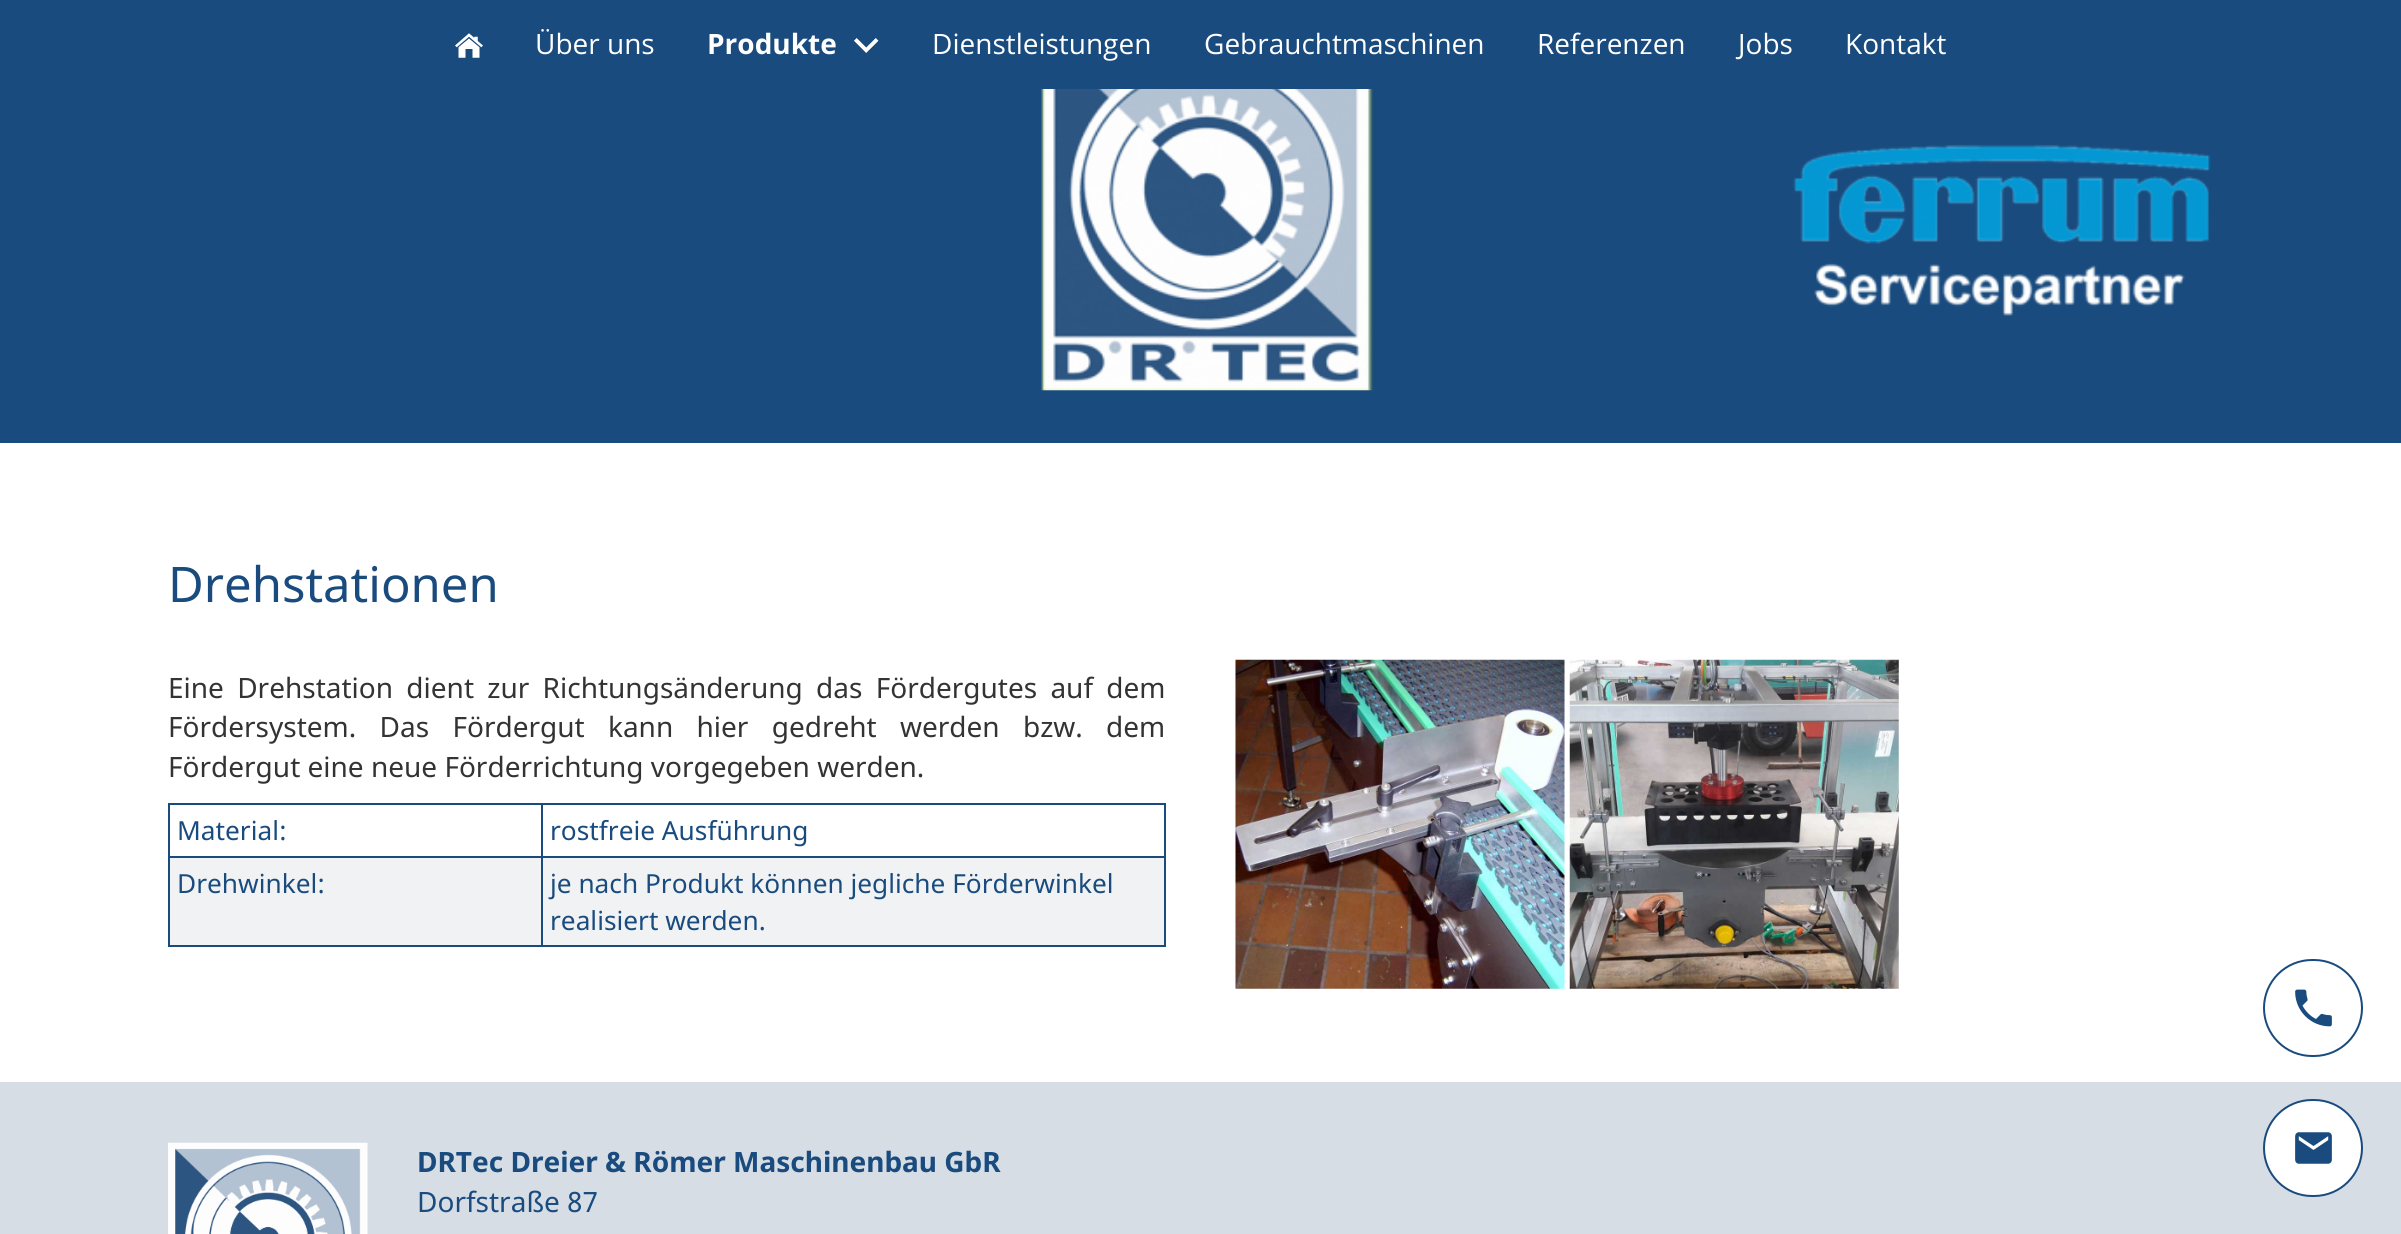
import math
import cairo


def use_color(cr, r, g, b):
  cr.set_source_rgb(r / 255, g / 255, b / 255)

def text(cr, x, y, s, family, size, color, bold=False, italic=False):
  cr.select_font_face(family, cairo.FONT_SLANT_ITALIC if italic else cairo.FONT_SLANT_NORMAL, cairo.FONT_WEIGHT_BOLD if bold else cairo.FONT_WEIGHT_NORMAL)
  cr.set_font_size(size)
  use_color(cr, *color)
  cr.move_to(x, y)
  cr.show_text(s)

def spaced_text(cr, x, y, s, letter, word):
  cr.move_to(x, y)
  for ch in s:
    cr.show_text(ch)
    cr.rel_move_to(letter + word * (ch == ' '), 0)

def box(cr, x, y, w, h, *color):
  use_color(cr, *color)
  cr.rectangle(x, y, w, h)
  cr.fill()

def round_rect(cr, x, y, w, h, r):
  cr.new_sub_path()
  for i, (u, v) in enumerate([(x + w - r, y + h - r), (x + r, y + h - r), (x + r, y + r), (x + w - r, y + r)]):
    cr.arc(u, v, r, i * math.pi / 2, (i + 1) * math.pi / 2)
  cr.close_path()

def picture(cr, path, x, y, w, h):
  cr.save()
  cr.set_source_surface(cairo.ImageSurface.create_from_png(path), x, y)
  cr.rectangle(x, y, w, h)
  cr.fill()
  cr.restore()

def draw(cr):
  use_color(cr, 255, 255, 255)
  cr.paint()
  box(cr, 0, 0, 2401, 443, 25, 75, 126)
  picture(cr, "img_01.png", 1041, 89, 1170, 302)
  picture(cr, "img_02.png", 455, 33, 28, 25)
  picture(cr, "img_03.png", 854, 38, 25, 15)
  box(cr, 541, 803, 625, 2, 25, 75, 126)
  box(cr, 541, 856, 625, 2, 25, 75, 126)
  box(cr, 1164, 856, 2, 91, 25, 75, 126)
  box(cr, 541, 945, 625, 2, 25, 75, 126)
  box(cr, 541, 856, 2, 91, 25, 75, 126)
  box(cr, 168, 856, 375, 2, 25, 75, 126)
  box(cr, 541, 803, 2, 55, 25, 75, 126)
  box(cr, 168, 803, 375, 2, 25, 75, 126)
  box(cr, 168, 945, 375, 2, 25, 75, 126)
  box(cr, 168, 856, 2, 91, 25, 75, 126)
  box(cr, 168, 803, 2, 55, 25, 75, 126)
  box(cr, 1164, 803, 2, 55, 25, 75, 126)
  box(cr, 170, 858, 371, 87, 240, 242, 244)
  box(cr, 543, 858, 621, 87, 240, 242, 244)
  picture(cr, "img_04.png", 1235, 659, 330, 330)
  picture(cr, "img_05.png", 1569, 659, 330, 330)
  box(cr, 0, 1082, 2401, 152, 214, 221, 229)
  round_rect(cr, 2264, 960, 98, 96, 48)
  use_color(cr, 25, 75, 126)
  cr.stroke()
  picture(cr, "img_06.png", 2295, 989, 37, 38)
  picture(cr, "img_07.png", 168, 1142, 200, 92)
  use_color(cr, 255, 255, 255)
  round_rect(cr, 2264, 1100, 98, 96, 48)
  cr.fill_preserve()
  use_color(cr, 25, 75, 126)
  cr.stroke()
  picture(cr, "img_08.png", 2295, 1132, 37, 32)
  text(cr, 535, 54, "Über uns", "Open Sans", 28, (255, 255, 255))
  text(cr, 707, 54, "Produkte", "Open Sans", 28, (255, 255, 255), bold=True)
  text(cr, 932, 54, "Dienstleistungen", "Open Sans", 28, (255, 255, 255))
  text(cr, 1204, 54, "Gebrauchtmaschinen", "Open Sans", 28, (255, 255, 255))
  text(cr, 1537, 54, "Referenzen", "Open Sans", 28, (255, 255, 255))
  text(cr, 1738, 54, "Jobs", "Open Sans", 28, (255, 255, 255))
  text(cr, 1845, 54, "Kontakt", "Open Sans", 28, (255, 255, 255))
  text(cr, 168, 602, "Drehstationen", "Noto Sans", 49, (25, 75, 126))
  cr.set_font_size(28)
  use_color(cr, 51, 51, 51)
  spaced_text(cr, 168, 698, "Eine Drehstation dient zur Richtungsänderung das Fördergutes auf dem", 0, 6)
  spaced_text(cr, 168, 737, "Fördersystem. Das Fördergut kann hier gedreht werden bzw. dem", 0, 16)
  text(cr, 168, 777, "Fördergut eine neue Förderrichtung vorgegeben werden.", "Noto Sans", 28, (51, 51, 51))
  text(cr, 177, 840, "Material:", "Noto Sans", 26.25, (25, 75, 126))
  text(cr, 550, 840, "rostfreie Ausführung", "Noto Sans", 26.25, (25, 75, 126))
  text(cr, 177, 893, "Drehwinkel:", "Noto Sans", 26.25, (25, 75, 126))
  text(cr, 550, 893, "je nach Produkt können jegliche Förderwinkel", "Noto Sans", 26.25, (25, 75, 126))
  text(cr, 550, 930, "realisiert werden.", "Noto Sans", 26.25, (25, 75, 126))
  text(cr, 417, 1172, "DRTec Dreier & Römer Maschinenbau GbR", "Noto Sans", 28, (25, 75, 126), bold=True)
  text(cr, 417, 1212, "Dorfstraße 87", "Noto Sans", 28, (25, 75, 126))


surface = cairo.ImageSurface(cairo.FORMAT_RGB24, 2401, 1234)
cr = cairo.Context(surface)
options = cairo.FontOptions()
options.set_hint_metrics(cairo.HINT_METRICS_OFF)
options.set_hint_style(cairo.HINT_STYLE_NONE)
cr.set_font_options(options)
cr.set_miter_limit(4)
draw(cr)
surface.write_to_png("out.png")
